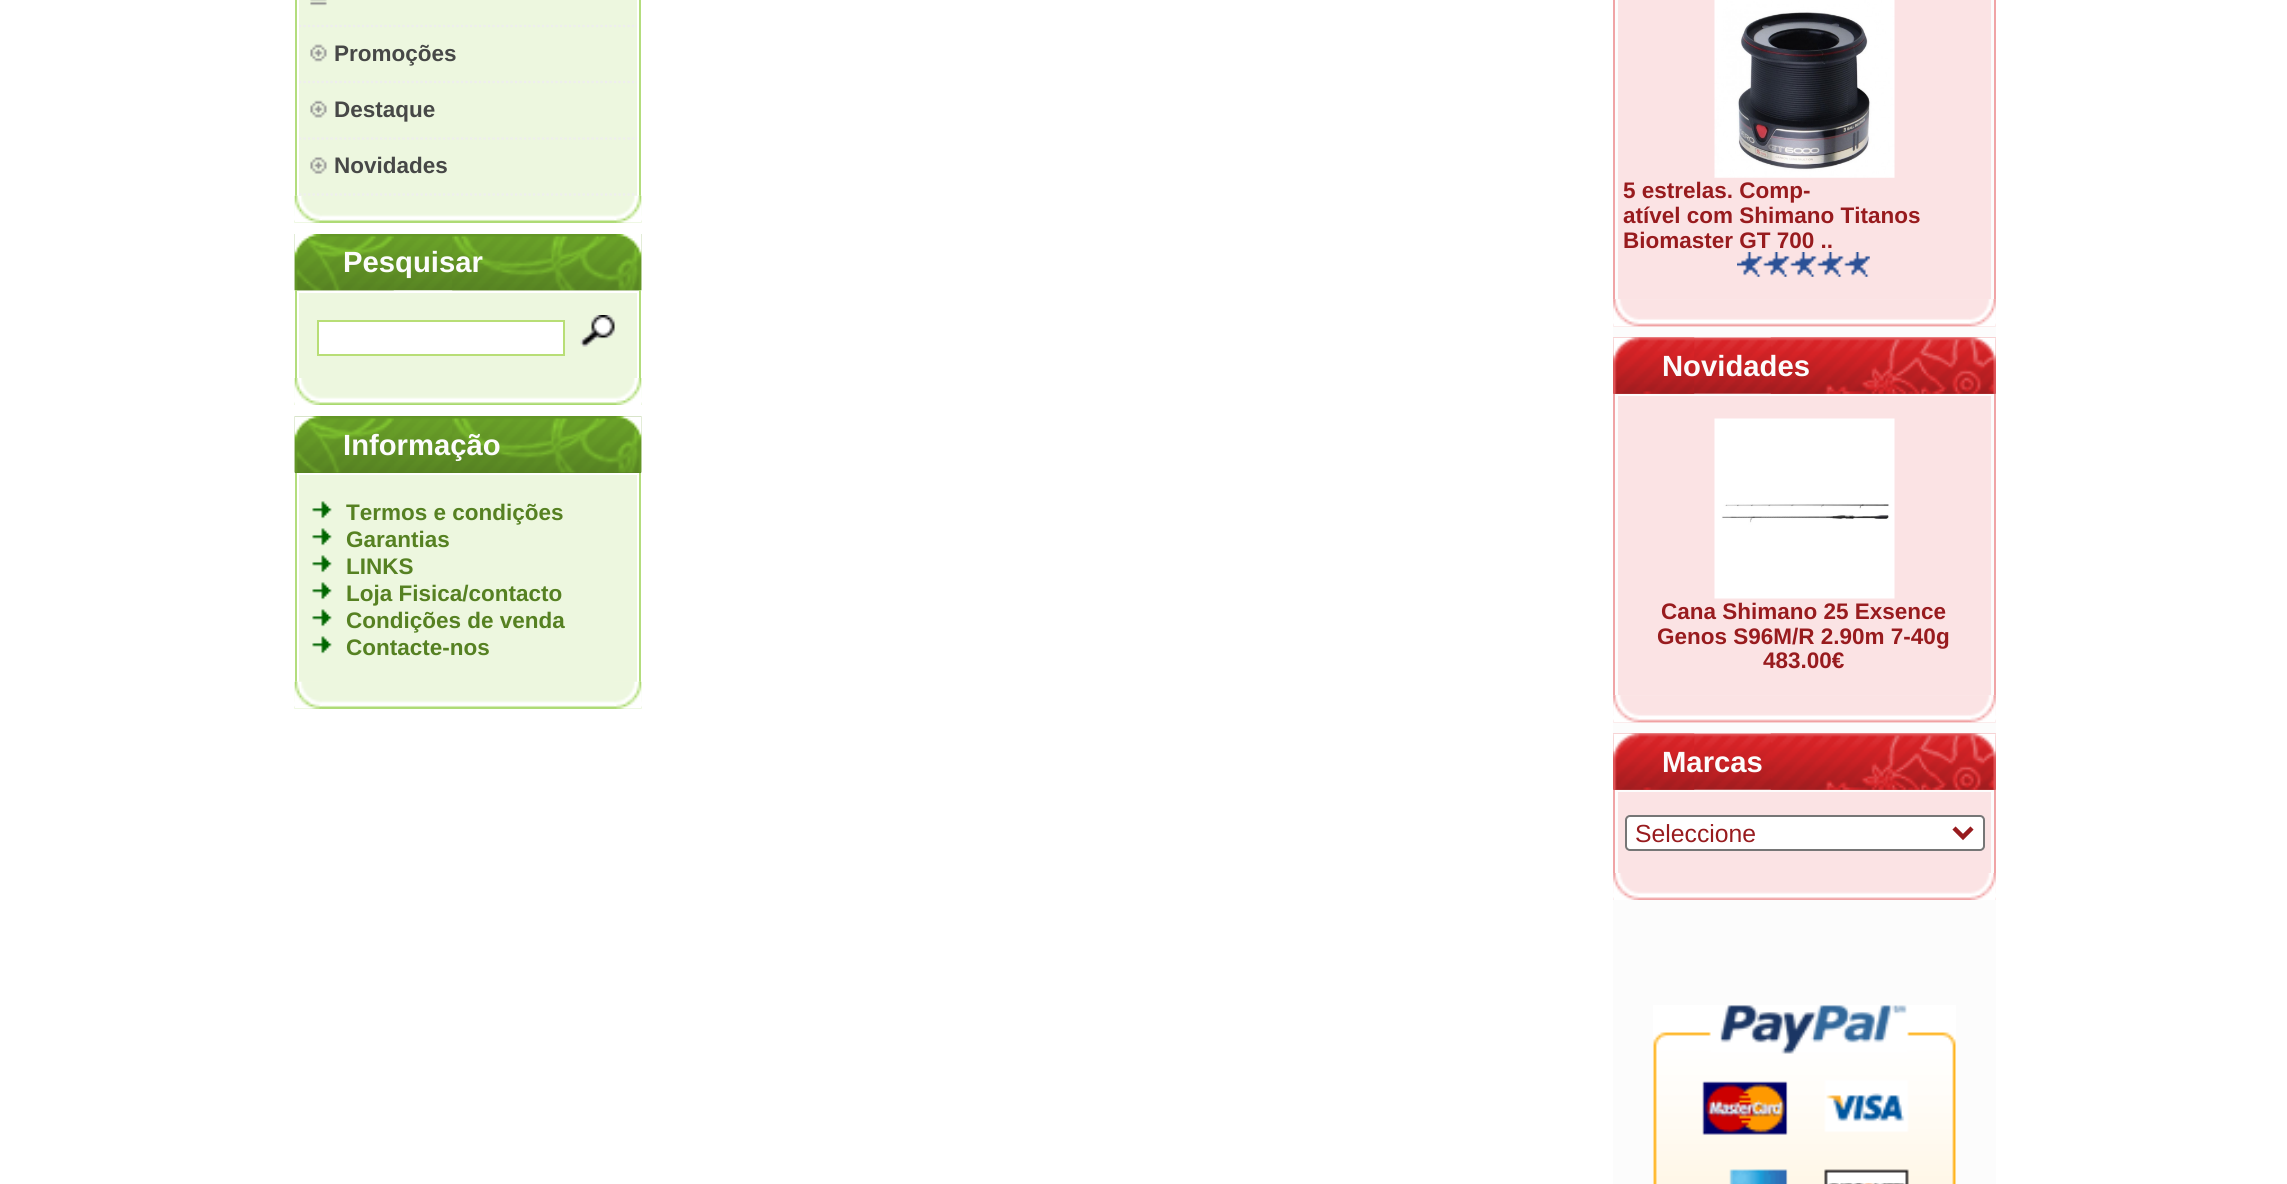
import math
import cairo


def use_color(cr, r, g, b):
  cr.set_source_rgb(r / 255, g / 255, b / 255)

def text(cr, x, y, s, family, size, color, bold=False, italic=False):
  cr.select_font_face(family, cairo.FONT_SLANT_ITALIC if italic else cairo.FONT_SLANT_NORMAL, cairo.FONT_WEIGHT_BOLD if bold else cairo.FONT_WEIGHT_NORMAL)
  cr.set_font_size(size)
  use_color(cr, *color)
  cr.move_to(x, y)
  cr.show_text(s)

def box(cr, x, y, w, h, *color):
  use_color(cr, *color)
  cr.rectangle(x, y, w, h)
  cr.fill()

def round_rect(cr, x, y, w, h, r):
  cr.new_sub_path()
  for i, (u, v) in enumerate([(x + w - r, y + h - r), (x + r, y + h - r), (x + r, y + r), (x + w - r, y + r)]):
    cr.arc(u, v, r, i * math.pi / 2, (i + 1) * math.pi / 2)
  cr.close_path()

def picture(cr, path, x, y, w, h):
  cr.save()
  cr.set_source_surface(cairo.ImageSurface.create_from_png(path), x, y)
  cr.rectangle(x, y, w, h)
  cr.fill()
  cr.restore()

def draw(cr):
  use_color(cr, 255, 255, 255)
  cr.paint()
  box(cr, 639, 0, 2, 198, 179, 221, 125)
  box(cr, 295, 0, 2, 198, 179, 221, 125)
  box(cr, 299, 0, 338, 196, 237, 247, 223)
  cr.new_path()
  cr.move_to(299, 26)
  cr.line_to(637, 26)
  use_color(cr, 238, 238, 238)
  cr.set_line_width(2.2)
  cr.set_dash([2.25, 2.25])
  cr.stroke()
  picture(cr, "img_01.png", 310, 0, 17, 6)
  cr.new_path()
  cr.move_to(299, 82)
  cr.line_to(637, 82)
  cr.stroke()
  picture(cr, "img_02.png", 310, 44, 17, 18)
  cr.new_path()
  cr.move_to(299, 138.5)
  cr.line_to(637, 138.5)
  cr.stroke()
  picture(cr, "img_03.png", 310, 100, 17, 18)
  picture(cr, "img_05.png", 294, 195, 348, 28)
  picture(cr, "img_07.png", 321, 222, 294, 1)
  picture(cr, "img_06.png", 294, 195, 28, 28)
  picture(cr, "img_08.png", 614, 195, 28, 28)
  cr.new_path()
  cr.move_to(299, 194.5)
  cr.line_to(637, 194.5)
  cr.set_source_rgba(0.933, 0.933, 0.933, 0.98)
  cr.stroke()
  picture(cr, "img_04.png", 310, 157, 17, 17)
  picture(cr, "img_09.png", 294, 234, 348, 57)
  picture(cr, "img_10.png", 294, 234, 100, 57)
  picture(cr, "img_11.png", 452, 234, 190, 57)
  box(cr, 639, 290, 2, 90, 179, 221, 125)
  box(cr, 295, 290, 2, 90, 179, 221, 125)
  box(cr, 299, 293, 338, 85, 237, 247, 223)
  use_color(cr, 255, 255, 255)
  cr.rectangle(318, 321, 246, 34)
  cr.fill_preserve()
  use_color(cr, 184, 222, 118)
  cr.set_line_width(2)
  cr.set_dash([])
  cr.stroke()
  picture(cr, "img_12.png", 580, 315, 35, 32)
  picture(cr, "img_13.png", 294, 378, 348, 27)
  picture(cr, "img_14.png", 294, 378, 26, 27)
  picture(cr, "img_15.png", 616, 378, 26, 27)
  box(cr, 295, 416, 346, 57, 86, 129, 34)
  picture(cr, "img_16.png", 294, 416, 348, 57)
  picture(cr, "img_17.png", 294, 416, 100, 57)
  picture(cr, "img_18.png", 452, 416, 190, 57)
  box(cr, 639, 473, 2, 211, 179, 221, 125)
  box(cr, 295, 473, 2, 211, 179, 221, 125)
  box(cr, 299, 475, 338, 207, 237, 247, 223)
  picture(cr, "img_19.png", 312, 501, 20, 18)
  picture(cr, "img_19.png", 312, 528, 20, 18)
  picture(cr, "img_19.png", 312, 555, 20, 18)
  picture(cr, "img_19.png", 312, 582, 20, 18)
  picture(cr, "img_19.png", 312, 609, 20, 18)
  picture(cr, "img_19.png", 312, 636, 20, 18)
  picture(cr, "img_05.png", 294, 681, 348, 28)
  picture(cr, "img_07.png", 321, 708, 294, 1)
  picture(cr, "img_06.png", 294, 681, 28, 28)
  picture(cr, "img_08.png", 614, 681, 28, 28)
  box(cr, 1613, 0, 383, 1184, 252, 252, 252)
  box(cr, 1994, 0, 2, 302, 240, 164, 166)
  box(cr, 1613, 0, 2, 302, 240, 164, 166)
  box(cr, 1618, 0, 373, 299, 251, 227, 228)
  picture(cr, "img_20.png", 1714, 0, 181, 178)
  picture(cr, "img_21.png", 1737, 252, 133, 25)
  picture(cr, "img_22.png", 1613, 299, 383, 28)
  picture(cr, "img_23.png", 1613, 299, 27, 28)
  picture(cr, "img_24.png", 1640, 299, 329, 28)
  picture(cr, "img_25.png", 1969, 299, 27, 28)
  picture(cr, "img_26.png", 1613, 337, 383, 57)
  picture(cr, "img_27.png", 1613, 337, 82, 57)
  picture(cr, "img_28.png", 1770, 337, 226, 57)
  box(cr, 1994, 394, 2, 304, 240, 164, 166)
  box(cr, 1613, 394, 2, 304, 240, 164, 166)
  box(cr, 1618, 396, 373, 299, 251, 227, 228)
  picture(cr, "img_29.png", 1714, 418, 181, 181)
  picture(cr, "img_30.png", 1613, 695, 383, 28)
  picture(cr, "img_23.png", 1613, 695, 27, 28)
  picture(cr, "img_31.png", 1640, 695, 329, 28)
  picture(cr, "img_25.png", 1969, 695, 27, 28)
  picture(cr, "img_32.png", 1613, 733, 383, 57)
  picture(cr, "img_27.png", 1613, 733, 82, 57)
  picture(cr, "img_28.png", 1770, 733, 226, 57)
  box(cr, 1994, 790, 2, 85, 240, 164, 166)
  box(cr, 1613, 790, 2, 85, 240, 164, 166)
  box(cr, 1618, 792, 373, 81, 251, 227, 228)
  use_color(cr, 255, 255, 255)
  round_rect(cr, 1626, 816, 358, 34, 4)
  cr.fill_preserve()
  use_color(cr, 118, 118, 118)
  cr.stroke()
  cr.new_path()
  cr.move_to(1954, 828)
  cr.line_to(1963, 837)
  cr.line_to(1972, 828)
  use_color(cr, 152, 27, 30)
  cr.set_line_width(4.5)
  cr.stroke()
  picture(cr, "img_33.png", 1613, 873, 383, 27)
  picture(cr, "img_34.png", 1613, 873, 26, 27)
  picture(cr, "img_35.png", 1970, 873, 26, 27)
  picture(cr, "img_36.png", 1653, 1005, 303, 179)
  text(cr, 334, 61, "Promoções", "Liberation Sans", 22.5, (71, 72, 71), bold=True)
  text(cr, 334, 117, "Destaque", "Liberation Sans", 22.5, (71, 72, 71), bold=True)
  text(cr, 334, 173, "Novidades", "Liberation Sans", 22.5, (71, 72, 71), bold=True)
  text(cr, 343, 272, "Pesquisar", "Liberation Sans", 29.25, (252, 252, 252), bold=True)
  text(cr, 343, 455, "Informação", "Liberation Sans", 29.25, (252, 252, 252), bold=True)
  text(cr, 346, 520, "Termos e condições", "Liberation Sans", 22.5, (86, 129, 34), bold=True)
  text(cr, 346, 547, "Garantias", "Liberation Sans", 22.5, (86, 129, 34), bold=True)
  text(cr, 346, 574, "LINKS", "Liberation Sans", 22.5, (86, 129, 34), bold=True)
  text(cr, 346, 601, "Loja Fisica/contacto", "Liberation Sans", 22.5, (86, 129, 34), bold=True)
  text(cr, 346, 628, "Condições de venda", "Liberation Sans", 22.5, (86, 129, 34), bold=True)
  text(cr, 346, 655, "Contacte-nos", "Liberation Sans", 22.5, (86, 129, 34), bold=True)
  text(cr, 1623, 198, "5 estrelas. Comp-", "Liberation Sans", 22.5, (152, 27, 30), bold=True)
  text(cr, 1623, 223, "atível com Shimano Titanos", "Liberation Sans", 22.5, (152, 27, 30), bold=True)
  text(cr, 1623, 248, "Biomaster GT 700 ..", "Liberation Sans", 22.5, (152, 27, 30), bold=True)
  text(cr, 1662, 376, "Novidades", "Liberation Sans", 29.25, (252, 252, 252), bold=True)
  text(cr, 1661, 619, "Cana Shimano 25 Exsence", "Liberation Sans", 22.5, (152, 27, 30), bold=True)
  text(cr, 1657, 644, "Genos S96M/R 2.90m 7-40g", "Liberation Sans", 22.5, (152, 27, 30), bold=True)
  text(cr, 1763, 668, "483.00€", "Liberation Sans", 22.5, (152, 27, 30), bold=True)
  text(cr, 1662, 772, "Marcas", "Liberation Sans", 29.25, (252, 252, 252), bold=True)
  text(cr, 1635, 842, "Seleccione", "Liberation Sans", 24.75, (152, 27, 30))


surface = cairo.ImageSurface(cairo.FORMAT_RGB24, 2287, 1184)
cr = cairo.Context(surface)
options = cairo.FontOptions()
options.set_hint_metrics(cairo.HINT_METRICS_OFF)
options.set_hint_style(cairo.HINT_STYLE_NONE)
cr.set_font_options(options)
cr.set_miter_limit(4)
draw(cr)
surface.write_to_png("out.png")
